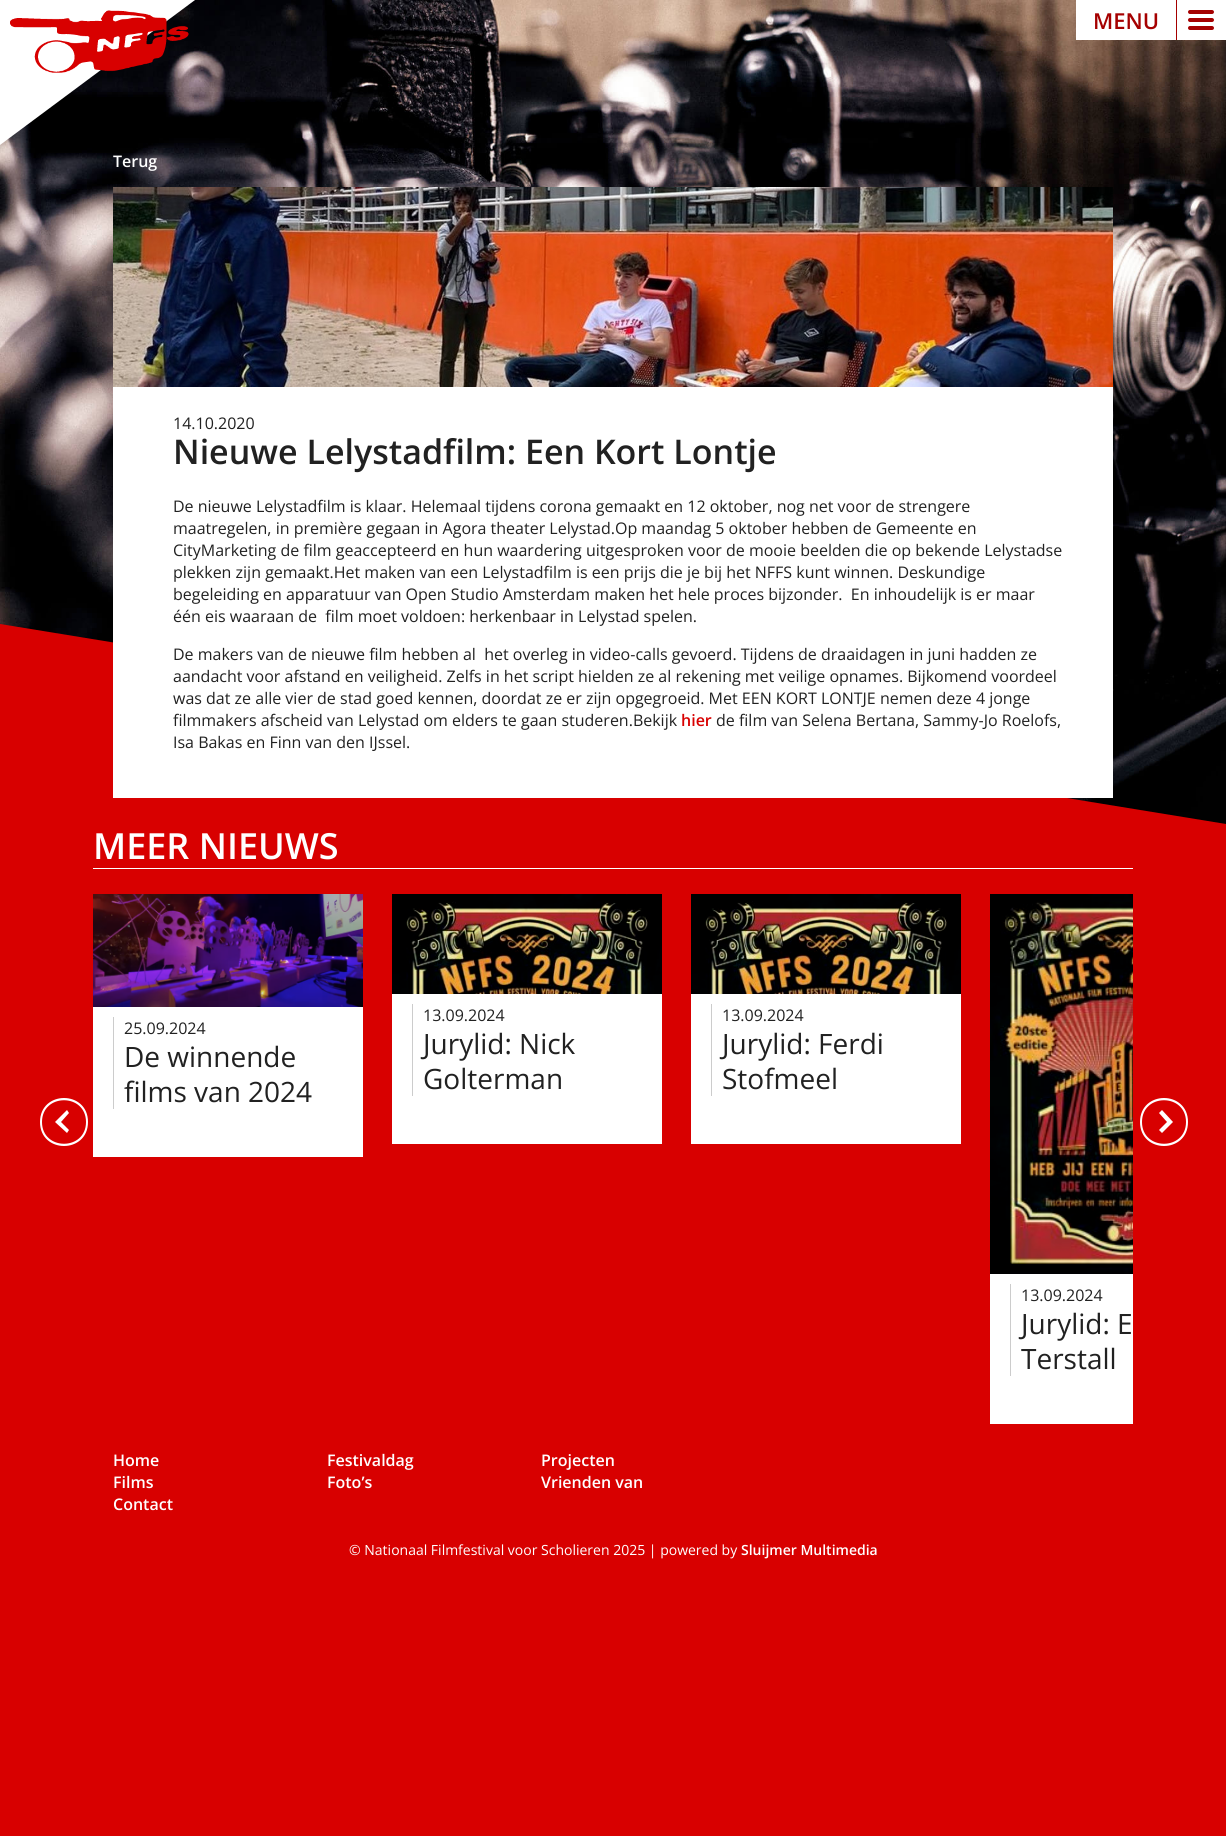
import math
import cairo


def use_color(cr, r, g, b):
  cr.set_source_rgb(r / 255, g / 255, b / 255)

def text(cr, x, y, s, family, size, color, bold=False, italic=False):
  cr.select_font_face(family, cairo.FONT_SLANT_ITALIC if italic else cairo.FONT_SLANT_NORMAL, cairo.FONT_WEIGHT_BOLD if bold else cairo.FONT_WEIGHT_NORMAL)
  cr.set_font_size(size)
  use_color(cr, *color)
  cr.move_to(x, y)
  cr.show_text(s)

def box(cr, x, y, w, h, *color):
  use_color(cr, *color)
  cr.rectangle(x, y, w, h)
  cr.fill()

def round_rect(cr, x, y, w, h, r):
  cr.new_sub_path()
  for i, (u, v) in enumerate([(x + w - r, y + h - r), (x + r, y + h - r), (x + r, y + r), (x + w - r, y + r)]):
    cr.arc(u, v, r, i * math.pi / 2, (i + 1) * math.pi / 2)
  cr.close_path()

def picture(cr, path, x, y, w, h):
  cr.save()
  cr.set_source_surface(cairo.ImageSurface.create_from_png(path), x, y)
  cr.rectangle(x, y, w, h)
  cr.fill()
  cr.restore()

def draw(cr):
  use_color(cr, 216, 0, 0)
  cr.paint()
  picture(cr, "img_02.png", 0, 0, 1226, 824)
  use_color(cr, 255, 255, 255)
  cr.new_path()
  cr.move_to(0, 0)
  cr.line_to(0, 145)
  cr.line_to(195, 0)
  cr.close_path()
  cr.fill()
  picture(cr, "img_01.png", 10, 10, 179, 63)
  box(cr, 1076, 0, 150, 40, 255, 255, 255)
  use_color(cr, 165, 0, 0)
  round_rect(cr, 1188, 10, 26, 4, 2)
  cr.fill()
  box(cr, 1176, 0, 1, 40, 165, 0, 0)
  round_rect(cr, 1188, 18, 26, 4, 2)
  cr.fill()
  round_rect(cr, 1188, 26, 26, 4, 2)
  cr.fill()
  use_color(cr, 216, 0, 0)
  cr.new_path()
  cr.move_to(0, 624)
  cr.line_to(1226, 824)
  cr.line_to(0, 824)
  cr.close_path()
  cr.fill()
  box(cr, 113, 387, 1000, 411, 255, 255, 255)
  picture(cr, "img_03.png", 113, 187, 1000, 200)
  box(cr, 93, 868, 1040, 1, 255, 255, 255)
  cr.new_path()
  cr.move_to(40, 1122)
  cr.curve_to(40, 1090, 88, 1090, 88, 1122)
  cr.curve_to(88, 1154, 40, 1154, 40, 1122)
  cr.close_path()
  cr.move_to(86, 1122)
  cr.curve_to(86, 1093, 42, 1093, 42, 1122)
  cr.curve_to(42, 1151, 86, 1151, 86, 1122)
  cr.close_path()
  cr.move_to(67, 1110)
  cr.line_to(69, 1113)
  cr.line_to(61, 1122)
  cr.line_to(69, 1130)
  cr.line_to(67, 1133)
  cr.line_to(55, 1122)
  cr.close_path()
  cr.fill()
  box(cr, 93, 1007, 270, 150, 255, 255, 255)
  picture(cr, "img_04.png", 93, 894, 270, 113)
  box(cr, 113, 1017, 1, 92, 204, 204, 204)
  box(cr, 392, 994, 270, 150, 255, 255, 255)
  picture(cr, "img_05.png", 392, 894, 270, 100)
  box(cr, 412, 1004, 1, 92, 204, 204, 204)
  box(cr, 691, 994, 270, 150, 255, 255, 255)
  picture(cr, "img_06.png", 691, 894, 270, 100)
  box(cr, 711, 1004, 1, 92, 204, 204, 204)
  box(cr, 990, 1274, 143, 150, 255, 255, 255)
  picture(cr, "img_07.png", 990, 894, 143, 380)
  box(cr, 1010, 1284, 1, 92, 204, 204, 204)
  use_color(cr, 255, 255, 255)
  cr.new_path()
  cr.move_to(1188, 1122)
  cr.curve_to(1188, 1090, 1140, 1090, 1140, 1122)
  cr.curve_to(1140, 1154, 1188, 1154, 1188, 1122)
  cr.close_path()
  cr.move_to(1142, 1122)
  cr.curve_to(1142, 1093, 1186, 1093, 1186, 1122)
  cr.curve_to(1186, 1151, 1142, 1151, 1142, 1122)
  cr.close_path()
  cr.move_to(1162, 1110)
  cr.line_to(1159, 1113)
  cr.line_to(1167, 1122)
  cr.line_to(1159, 1130)
  cr.line_to(1162, 1133)
  cr.line_to(1173, 1122)
  cr.close_path()
  cr.fill()
  text(cr, 1093, 29, "MENU", "Open Sans SemiBold", 22, (165, 0, 0))
  text(cr, 113, 167, "Terug", "Open Sans SemiBold", 16, (255, 255, 255))
  text(cr, 173, 429, "14.10.2020", "Open Sans", 16, (33, 33, 33))
  text(cr, 173, 464, "Nieuwe Lelystadfilm: Een Kort Lontje", "Open Sans SemiBold", 34, (33, 33, 33))
  text(cr, 173, 512, "De nieuwe Lelystadfilm is klaar. Helemaal tijdens corona gemaakt en 12 oktober, nog net voor de strengere", "Open Sans", 16, (33, 33, 33))
  text(cr, 173, 534, "maatregelen, in première gegaan in Agora theater Lelystad.Op maandag 5 oktober hebben de Gemeente en", "Open Sans", 16, (33, 33, 33))
  text(cr, 173, 556, "CityMarketing de film geaccepteerd en hun waardering uitgesproken voor de mooie beelden die op bekende Lelystadse", "Open Sans", 16, (33, 33, 33))
  text(cr, 173, 578, "plekken zijn gemaakt.Het maken van een Lelystadfilm is een prijs die je bij het NFFS kunt winnen. Deskundige", "Open Sans", 16, (33, 33, 33))
  text(cr, 173, 600, "begeleiding en apparatuur van Open Studio Amsterdam maken het hele proces bijzonder.  En inhoudelijk is er maar", "Open Sans", 16, (33, 33, 33))
  text(cr, 173, 622, "één eis waaraan de  film moet voldoen: herkenbaar in Lelystad spelen.", "Open Sans", 16, (33, 33, 33))
  text(cr, 173, 660, "De makers van de nieuwe film hebben al  het overleg in video-calls gevoerd. Tijdens de draaidagen in juni hadden ze", "Open Sans", 16, (33, 33, 33))
  text(cr, 173, 682, "aandacht voor afstand en veiligheid. Zelfs in het script hielden ze al rekening met veilige opnames. Bijkomend voordeel", "Open Sans", 16, (33, 33, 33))
  text(cr, 173, 704, "was dat ze alle vier de stad goed kennen, doordat ze er zijn opgegroeid. Met EEN KORT LONTJE nemen deze 4 jonge", "Open Sans", 16, (33, 33, 33))
  text(cr, 173, 726, "filmmakers afscheid van Lelystad om elders te gaan studeren.Bekijk", "Open Sans", 16, (33, 33, 33))
  text(cr, 681, 726, "hier", "Open Sans SemiBold", 16, (216, 0, 0))
  text(cr, 716, 726, "de film van Selena Bertana, Sammy-Jo Roelofs,", "Open Sans", 16, (33, 33, 33))
  text(cr, 173, 748, "Isa Bakas en Finn van den IJssel.", "Open Sans", 16, (33, 33, 33))
  text(cr, 93, 859, "MEER NIEUWS", "Open Sans SemiBold", 36, (255, 255, 255))
  text(cr, 124, 1034, "25.09.2024", "Open Sans", 16, (33, 33, 33))
  text(cr, 124, 1067, "De winnende", "Open Sans", 28, (33, 33, 33))
  text(cr, 124, 1102, "films van 2024", "Open Sans", 28, (33, 33, 33))
  text(cr, 423, 1021, "13.09.2024", "Open Sans", 16, (33, 33, 33))
  text(cr, 423, 1054, "Jurylid: Nick", "Open Sans", 28, (33, 33, 33))
  text(cr, 423, 1089, "Golterman", "Open Sans", 28, (33, 33, 33))
  text(cr, 722, 1021, "13.09.2024", "Open Sans", 16, (33, 33, 33))
  text(cr, 722, 1054, "Jurylid: Ferdi", "Open Sans", 28, (33, 33, 33))
  text(cr, 722, 1089, "Stofmeel", "Open Sans", 28, (33, 33, 33))
  text(cr, 1021, 1301, "13.09.2024", "Open Sans", 16, (33, 33, 33))
  text(cr, 1021, 1334, "Jurylid: E", "Open Sans", 28, (33, 33, 33))
  text(cr, 1021, 1369, "Terstall", "Open Sans", 28, (33, 33, 33))
  text(cr, 113, 1466, "Home", "Open Sans SemiBold", 16, (255, 255, 255))
  text(cr, 327, 1466, "Festivaldag", "Open Sans SemiBold", 16, (255, 255, 255))
  text(cr, 541, 1466, "Projecten", "Open Sans SemiBold", 16, (255, 255, 255))
  text(cr, 113, 1488, "Films", "Open Sans SemiBold", 16, (255, 255, 255))
  text(cr, 327, 1488, "Foto’s", "Open Sans SemiBold", 16, (255, 255, 255))
  text(cr, 541, 1488, "Vrienden van", "Open Sans SemiBold", 16, (255, 255, 255))
  text(cr, 113, 1510, "Contact", "Open Sans SemiBold", 16, (255, 255, 255))
  text(cr, 349, 1555, "© Nationaal Filmfestival voor Scholieren 2025 | powered by", "Open Sans", 14, (255, 255, 255))
  text(cr, 741, 1555, "Sluijmer Multimedia", "Open Sans SemiBold", 14, (255, 255, 255))


surface = cairo.ImageSurface(cairo.FORMAT_RGB24, 1226, 1836)
cr = cairo.Context(surface)
options = cairo.FontOptions()
options.set_hint_metrics(cairo.HINT_METRICS_OFF)
options.set_hint_style(cairo.HINT_STYLE_NONE)
cr.set_font_options(options)
cr.set_miter_limit(4)
draw(cr)
surface.write_to_png("out.png")
